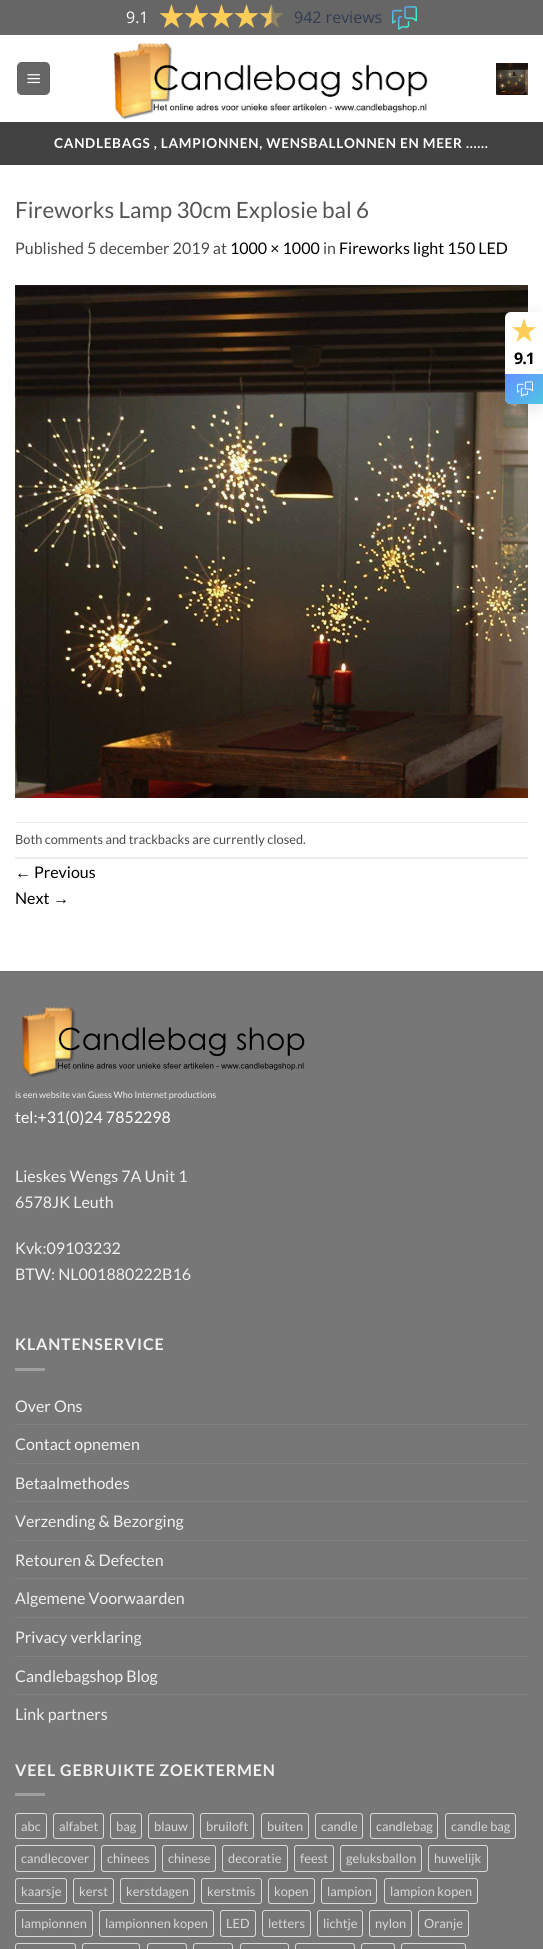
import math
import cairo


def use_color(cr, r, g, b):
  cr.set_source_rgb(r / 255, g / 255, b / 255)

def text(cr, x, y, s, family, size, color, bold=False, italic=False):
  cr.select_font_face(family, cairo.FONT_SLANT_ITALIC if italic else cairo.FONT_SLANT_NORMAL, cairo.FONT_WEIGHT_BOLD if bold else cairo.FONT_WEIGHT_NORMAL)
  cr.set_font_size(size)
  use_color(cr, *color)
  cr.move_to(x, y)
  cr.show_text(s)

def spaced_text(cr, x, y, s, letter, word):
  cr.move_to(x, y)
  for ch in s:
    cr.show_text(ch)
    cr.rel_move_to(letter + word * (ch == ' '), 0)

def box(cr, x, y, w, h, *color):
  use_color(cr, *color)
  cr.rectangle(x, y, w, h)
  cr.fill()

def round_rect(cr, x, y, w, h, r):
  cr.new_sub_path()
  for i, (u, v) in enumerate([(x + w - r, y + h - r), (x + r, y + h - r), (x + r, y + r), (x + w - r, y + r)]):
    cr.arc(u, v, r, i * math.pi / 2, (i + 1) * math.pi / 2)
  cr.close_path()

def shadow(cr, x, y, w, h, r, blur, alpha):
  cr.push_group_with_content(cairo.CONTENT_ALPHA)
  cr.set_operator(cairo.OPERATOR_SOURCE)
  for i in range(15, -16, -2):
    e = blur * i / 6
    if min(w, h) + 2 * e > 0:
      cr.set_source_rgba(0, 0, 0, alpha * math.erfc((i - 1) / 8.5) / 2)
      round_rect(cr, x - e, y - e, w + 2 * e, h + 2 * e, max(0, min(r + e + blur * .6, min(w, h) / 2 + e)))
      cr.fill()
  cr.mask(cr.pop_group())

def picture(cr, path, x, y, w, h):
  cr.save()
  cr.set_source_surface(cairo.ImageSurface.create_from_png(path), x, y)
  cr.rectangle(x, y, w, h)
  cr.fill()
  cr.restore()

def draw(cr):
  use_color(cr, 255, 255, 255)
  cr.paint()
  box(cr, 0, 0, 543, 35, 102, 102, 102)
  picture(cr, "img_01.png", 159, 4, 25, 24)
  picture(cr, "img_01.png", 184, 4, 25, 24)
  picture(cr, "img_01.png", 209, 4, 25, 24)
  picture(cr, "img_01.png", 234, 4, 25, 24)
  picture(cr, "img_02.png", 259, 4, 25, 24)
  picture(cr, "img_03.png", 392, 6, 25, 24)
  round_rect(cr, 17, 62, 33, 33, 5)
  cr.fill()
  cr.rectangle(17.5, 62.5, 32, 32)
  cr.set_source_rgba(0, 0, 0, 0.05)
  cr.set_line_width(1)
  cr.stroke()
  picture(cr, "img_04.png", 27, 74, 13, 10)
  picture(cr, "img_05.png", 114, 43, 314, 77)
  picture(cr, "img_06.png", 496, 63, 32, 32)
  box(cr, 0, 122, 543, 43, 66, 66, 66)
  picture(cr, "img_07.png", 15, 285, 513, 513)
  box(cr, 15, 822, 513, 1, 236, 236, 236)
  box(cr, 15, 857, 513, 2, 236, 236, 236)
  box(cr, 0, 972, 543, 977, 119, 119, 119)
  box(cr, 0, 971, 543, 1, 113, 113, 113)
  picture(cr, "img_08.png", 22, 1007, 283, 71)
  box(cr, 15, 1368, 30, 3, 160, 160, 160)
  box(cr, 15, 1424, 513, 1, 130, 130, 130)
  box(cr, 15, 1463, 513, 1, 130, 130, 130)
  box(cr, 15, 1501, 513, 1, 130, 130, 130)
  box(cr, 15, 1540, 513, 1, 130, 130, 130)
  box(cr, 15, 1578, 513, 1, 130, 130, 130)
  box(cr, 15, 1617, 513, 1, 130, 130, 130)
  box(cr, 15, 1656, 513, 1, 130, 130, 130)
  box(cr, 15, 1694, 513, 1, 130, 130, 130)
  box(cr, 15, 1793, 30, 3, 160, 160, 160)
  round_rect(cr, 15.5, 1813.5, 31, 25, 2.5)
  use_color(cr, 217, 217, 217)
  cr.stroke()
  round_rect(cr, 53.5, 1813.5, 50, 25, 2.5)
  cr.stroke()
  round_rect(cr, 110.5, 1813.5, 31, 25, 2.5)
  cr.stroke()
  round_rect(cr, 148.5, 1813.5, 45, 25, 2.5)
  cr.stroke()
  round_rect(cr, 200.5, 1813.5, 53, 25, 2.5)
  cr.stroke()
  round_rect(cr, 261.5, 1813.5, 47, 25, 2.5)
  cr.stroke()
  round_rect(cr, 315.5, 1813.5, 47, 25, 2.5)
  cr.stroke()
  round_rect(cr, 370.5, 1813.5, 67, 25, 2.5)
  cr.stroke()
  round_rect(cr, 445.5, 1813.5, 70, 25, 2.5)
  cr.stroke()
  round_rect(cr, 15.5, 1845.5, 79, 26, 2.5)
  cr.stroke()
  round_rect(cr, 101.5, 1845.5, 54, 26, 2.5)
  cr.stroke()
  round_rect(cr, 162.5, 1845.5, 53, 26, 2.5)
  cr.stroke()
  round_rect(cr, 222.5, 1845.5, 65, 26, 2.5)
  cr.stroke()
  round_rect(cr, 294.5, 1845.5, 39, 26, 2.5)
  cr.stroke()
  round_rect(cr, 340.5, 1845.5, 81, 26, 2.5)
  cr.stroke()
  round_rect(cr, 428.5, 1845.5, 59, 26, 2.5)
  cr.stroke()
  round_rect(cr, 15.5, 1878.5, 51, 25, 2.5)
  cr.stroke()
  round_rect(cr, 73.5, 1878.5, 40, 25, 2.5)
  cr.stroke()
  round_rect(cr, 120.5, 1878.5, 74, 25, 2.5)
  cr.stroke()
  round_rect(cr, 201.5, 1878.5, 60, 25, 2.5)
  cr.stroke()
  round_rect(cr, 268.5, 1878.5, 46, 25, 2.5)
  cr.stroke()
  round_rect(cr, 321.5, 1878.5, 55, 25, 2.5)
  cr.stroke()
  round_rect(cr, 384.5, 1878.5, 93, 25, 2.5)
  cr.stroke()
  round_rect(cr, 15.5, 1910.5, 77, 26, 2.5)
  cr.stroke()
  round_rect(cr, 99.5, 1910.5, 114, 26, 2.5)
  cr.stroke()
  round_rect(cr, 220.5, 1910.5, 35, 26, 2.5)
  cr.stroke()
  round_rect(cr, 262.5, 1910.5, 48, 26, 2.5)
  cr.stroke()
  round_rect(cr, 317.5, 1910.5, 45, 26, 2.5)
  cr.stroke()
  round_rect(cr, 369.5, 1910.5, 42, 26, 2.5)
  cr.stroke()
  round_rect(cr, 418.5, 1910.5, 50, 26, 2.5)
  cr.stroke()
  round_rect(cr, 15.5, 1943.5, 60, 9, 2.5)
  cr.stroke()
  round_rect(cr, 82.5, 1943.5, 57, 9, 2.5)
  cr.stroke()
  round_rect(cr, 147.5, 1943.5, 39, 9, 2.5)
  cr.stroke()
  round_rect(cr, 193.5, 1943.5, 39, 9, 2.5)
  cr.stroke()
  round_rect(cr, 240.5, 1943.5, 48, 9, 2.5)
  cr.stroke()
  round_rect(cr, 295.5, 1943.5, 59, 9, 2.5)
  cr.stroke()
  round_rect(cr, 361.5, 1943.5, 33, 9, 2.5)
  cr.stroke()
  round_rect(cr, 401.5, 1943.5, 64, 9, 2.5)
  cr.stroke()
  use_color(cr, 30, 30, 30)
  shadow(cr, 505, 316, 38, 92, 6, 8, 0.12)
  use_color(cr, 255, 255, 255)
  cr.new_path()
  cr.move_to(511, 312)
  cr.line_to(543, 312)
  cr.line_to(543, 404)
  cr.line_to(511, 404)
  cr.curve_to(507.5, 404, 505, 401.5, 505, 398)
  cr.line_to(505, 318)
  cr.curve_to(505, 314.5, 507.5, 312, 511, 312)
  cr.close_path()
  cr.fill()
  picture(cr, "img_09.png", 512, 318, 24, 24)
  gradient = cairo.LinearGradient(508, 371, 540, 407)
  gradient.add_color_stop_rgba(0, 0.396, 0.565, 1, 1)
  gradient.add_color_stop_rgba(1, 0.306, 0.773, 0.894, 1)
  cr.set_source(gradient)
  cr.new_path()
  cr.move_to(505, 374)
  cr.line_to(543, 374)
  cr.line_to(543, 404)
  cr.line_to(511, 404)
  cr.curve_to(507.5, 404, 505, 401.5, 505, 398)
  cr.close_path()
  cr.fill()
  picture(cr, "img_10.png", 517, 381, 16, 16)
  text(cr, 126, 23, "9.1", "Open Sans", 16, (255, 255, 255))
  text(cr, 294, 23, "942 reviews", "Open Sans", 16, (48, 60, 80))
  cr.select_font_face("Lato", cairo.FONT_SLANT_NORMAL, cairo.FONT_WEIGHT_BOLD)
  cr.set_font_size(13.6)
  use_color(cr, 255, 255, 255)
  spaced_text(cr, 54, 148, "CANDLEBAGS , LAMPIONNEN, WENSBALLONNEN EN MEER ......", 0.68, 0)
  text(cr, 15, 218, "Fireworks Lamp 30cm Explosie bal 6", "Lato", 22.4, (85, 85, 85))
  text(cr, 15, 254, "Published 5 december 2019 at", "Lato", 16, (74, 74, 74))
  text(cr, 230, 254, "1000 × 1000", "Lato", 16, (0, 0, 0))
  text(cr, 323, 254, "in", "Lato", 16, (74, 74, 74))
  text(cr, 339, 254, "Fireworks light 150 LED", "Lato", 16, (0, 0, 0))
  text(cr, 15, 844, "Both comments and trackbacks are currently closed.", "Lato", 12.8, (74, 74, 74))
  text(cr, 15, 878, "←", "Liberation Sans", 16, (0, 0, 0))
  text(cr, 34, 878, "Previous", "Lato", 16, (0, 0, 0))
  text(cr, 15, 904, "Next", "Lato", 16, (0, 0, 0))
  text(cr, 53, 904, "→", "Liberation Sans", 16, (0, 0, 0))
  text(cr, 15, 1098, "is een website van Guess Who Internet productions", "Lato", 9, (241, 241, 241))
  text(cr, 15, 1123, "tel:+31(0)24 7852298", "Lato", 16, (255, 255, 255))
  text(cr, 15, 1182, "Lieskes Wengs 7A Unit 1", "Lato", 16, (241, 241, 241))
  text(cr, 15, 1208, "6578JK Leuth", "Lato", 16, (241, 241, 241))
  text(cr, 15, 1254, "Kvk:09103232", "Lato", 16, (241, 241, 241))
  text(cr, 15, 1280, "BTW: NL001880222B16", "Lato", 16, (241, 241, 241))
  cr.select_font_face("Lato", cairo.FONT_SLANT_NORMAL, cairo.FONT_WEIGHT_BOLD)
  spaced_text(cr, 15, 1350, "KLANTENSERVICE", 0.8, 0)
  text(cr, 15, 1412, "Over Ons", "Lato", 16, (241, 241, 241))
  text(cr, 15, 1450, "Contact opnemen", "Lato", 16, (241, 241, 241))
  text(cr, 15, 1489, "Betaalmethodes", "Lato", 16, (241, 241, 241))
  text(cr, 15, 1527, "Verzending & Bezorging", "Lato", 16, (241, 241, 241))
  text(cr, 15, 1566, "Retouren & Defecten", "Lato", 16, (241, 241, 241))
  text(cr, 15, 1604, "Algemene Voorwaarden", "Lato", 16, (241, 241, 241))
  text(cr, 15, 1643, "Privacy verklaring", "Lato", 16, (241, 241, 241))
  text(cr, 15, 1682, "Candlebagshop Blog", "Lato", 16, (241, 241, 241))
  text(cr, 15, 1720, "Link partners", "Lato", 16, (241, 241, 241))
  cr.select_font_face("Lato", cairo.FONT_SLANT_NORMAL, cairo.FONT_WEIGHT_BOLD)
  spaced_text(cr, 15, 1776, "VEEL GEBRUIKTE ZOEKTERMEN", 0.8, 0)
  text(cr, 21, 1831, "abc", "Lato", 12.8, (217, 217, 217))
  text(cr, 59, 1831, "alfabet", "Lato", 12.8, (217, 217, 217))
  text(cr, 116, 1831, "bag", "Lato", 12.8, (217, 217, 217))
  text(cr, 154, 1831, "blauw", "Lato", 12.8, (217, 217, 217))
  text(cr, 206, 1831, "bruiloft", "Lato", 12.8, (217, 217, 217))
  text(cr, 267, 1831, "buiten", "Lato", 12.8, (217, 217, 217))
  text(cr, 321, 1831, "candle", "Lato", 12.8, (217, 217, 217))
  text(cr, 376, 1831, "candlebag", "Lato", 12.8, (217, 217, 217))
  text(cr, 451, 1831, "candle bag", "Lato", 12.8, (217, 217, 217))
  text(cr, 21, 1863, "candlecover", "Lato", 12.8, (217, 217, 217))
  text(cr, 107, 1863, "chinees", "Lato", 12.8, (217, 217, 217))
  text(cr, 168, 1863, "chinese", "Lato", 12.8, (217, 217, 217))
  text(cr, 228, 1863, "decoratie", "Lato", 12.8, (217, 217, 217))
  text(cr, 300, 1863, "feest", "Lato", 12.8, (217, 217, 217))
  text(cr, 346, 1863, "geluksballon", "Lato", 12.8, (217, 217, 217))
  text(cr, 434, 1863, "huwelijk", "Lato", 12.8, (217, 217, 217))
  text(cr, 21, 1896, "kaarsje", "Lato", 12.8, (217, 217, 217))
  text(cr, 79, 1896, "kerst", "Lato", 12.8, (217, 217, 217))
  text(cr, 126, 1896, "kerstdagen", "Lato", 12.8, (217, 217, 217))
  text(cr, 207, 1896, "kerstmis", "Lato", 12.8, (217, 217, 217))
  text(cr, 274, 1896, "kopen", "Lato", 12.8, (217, 217, 217))
  text(cr, 327, 1896, "lampion", "Lato", 12.8, (217, 217, 217))
  text(cr, 390, 1896, "lampion kopen", "Lato", 12.8, (217, 217, 217))
  text(cr, 21, 1928, "lampionnen", "Lato", 12.8, (217, 217, 217))
  text(cr, 105, 1928, "lampionnen kopen", "Lato", 12.8, (217, 217, 217))
  text(cr, 226, 1928, "LED", "Lato", 12.8, (217, 217, 217))
  text(cr, 268, 1928, "letters", "Lato", 12.8, (217, 217, 217))
  text(cr, 323, 1928, "lichtje", "Lato", 12.8, (217, 217, 217))
  text(cr, 375, 1928, "nylon", "Lato", 12.8, (217, 217, 217))
  text(cr, 424, 1928, "Oranje", "Lato", 12.8, (217, 217, 217))
  cr.select_font_face("Open Sans", cairo.FONT_SLANT_NORMAL, cairo.FONT_WEIGHT_BOLD)
  cr.set_font_size(16)
  use_color(cr, 0, 0, 0)
  spaced_text(cr, 514, 364, "9.1", -1, 0)


surface = cairo.ImageSurface(cairo.FORMAT_RGB24, 543, 1949)
cr = cairo.Context(surface)
options = cairo.FontOptions()
options.set_hint_metrics(cairo.HINT_METRICS_OFF)
options.set_hint_style(cairo.HINT_STYLE_NONE)
cr.set_font_options(options)
cr.set_miter_limit(4)
draw(cr)
surface.write_to_png("out.png")
